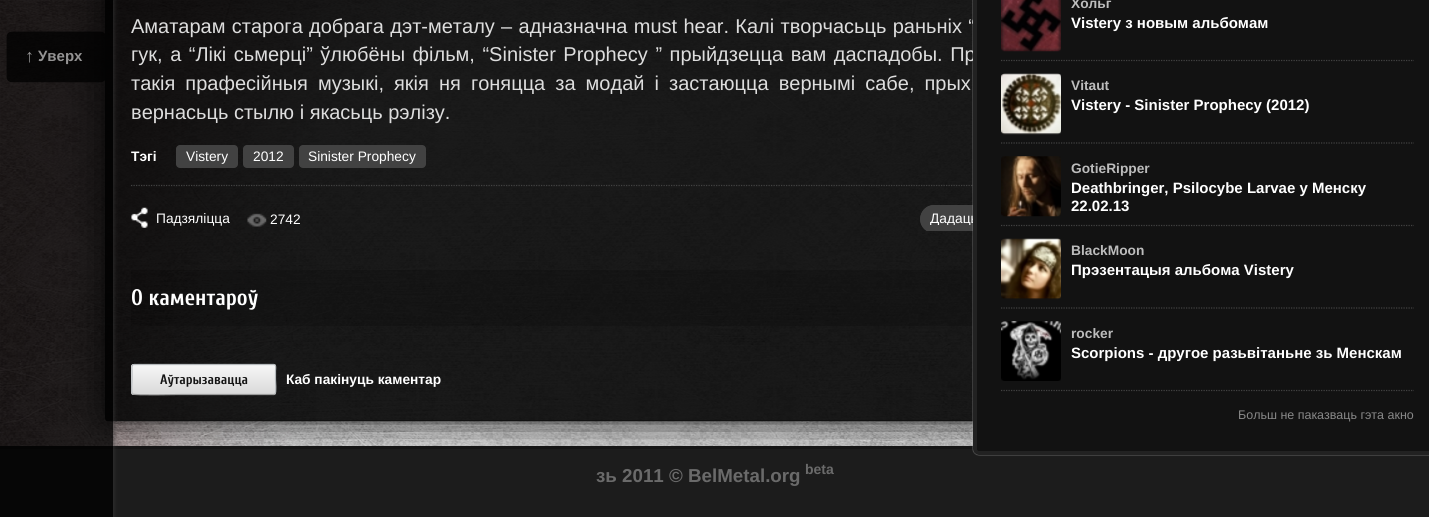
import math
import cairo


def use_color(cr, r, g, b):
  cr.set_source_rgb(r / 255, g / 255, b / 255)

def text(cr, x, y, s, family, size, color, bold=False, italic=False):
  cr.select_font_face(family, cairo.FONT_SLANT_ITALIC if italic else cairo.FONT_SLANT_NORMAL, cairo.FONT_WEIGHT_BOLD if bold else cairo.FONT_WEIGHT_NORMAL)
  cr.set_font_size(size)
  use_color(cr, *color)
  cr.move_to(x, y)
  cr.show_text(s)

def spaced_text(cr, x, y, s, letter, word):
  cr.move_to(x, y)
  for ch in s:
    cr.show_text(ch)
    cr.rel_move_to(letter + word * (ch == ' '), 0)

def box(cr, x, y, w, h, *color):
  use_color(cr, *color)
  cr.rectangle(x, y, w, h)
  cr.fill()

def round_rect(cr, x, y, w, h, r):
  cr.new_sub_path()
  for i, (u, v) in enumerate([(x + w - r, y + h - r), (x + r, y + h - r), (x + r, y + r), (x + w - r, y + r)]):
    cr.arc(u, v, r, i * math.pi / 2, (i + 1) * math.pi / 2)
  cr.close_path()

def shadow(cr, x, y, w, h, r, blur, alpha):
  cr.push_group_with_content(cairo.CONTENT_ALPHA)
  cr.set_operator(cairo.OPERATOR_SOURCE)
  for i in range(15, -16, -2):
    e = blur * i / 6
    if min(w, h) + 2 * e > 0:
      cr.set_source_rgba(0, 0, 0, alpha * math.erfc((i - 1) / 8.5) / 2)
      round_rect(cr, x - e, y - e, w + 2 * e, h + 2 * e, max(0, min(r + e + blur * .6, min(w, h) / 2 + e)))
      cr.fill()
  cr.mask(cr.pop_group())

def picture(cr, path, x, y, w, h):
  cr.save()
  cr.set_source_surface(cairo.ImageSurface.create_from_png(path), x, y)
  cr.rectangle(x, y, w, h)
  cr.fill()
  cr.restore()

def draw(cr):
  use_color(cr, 255, 255, 255)
  cr.paint()
  picture(cr, "img_02.png", 0, 0, 973, 446)
  cr.save()
  cr.set_fill_rule(cairo.FILL_RULE_EVEN_ODD)
  cr.new_path()
  cr.move_to(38, 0)
  cr.line_to(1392, 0)
  cr.line_to(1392, 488)
  cr.line_to(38, 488)
  cr.close_path()
  cr.move_to(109, -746)
  cr.line_to(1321, -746)
  cr.curve_to(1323, -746, 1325, -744, 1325, -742)
  cr.line_to(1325, 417)
  cr.curve_to(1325, 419, 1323, 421, 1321, 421)
  cr.line_to(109, 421)
  cr.curve_to(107, 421, 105, 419, 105, 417)
  cr.line_to(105, -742)
  cr.curve_to(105, -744, 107, -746, 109, -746)
  cr.close_path()
  cr.clip()
  use_color(cr, 16, 16, 16)
  shadow(cr, 105, -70, 1220, 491, 4, 22, 1)
  cr.restore()
  picture(cr, "img_03.png", 105, 0, 868, 422)
  round_rect(cr, 105.5, -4.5, 1219, 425, 3.5)
  use_color(cr, 16, 16, 16)
  cr.set_line_width(1)
  cr.stroke()
  box(cr, 0, 449, 1429, 68, 28, 28, 28)
  box(cr, 0, 446, 973, 3, 21, 21, 21)
  cr.save()
  cr.set_fill_rule(cairo.FILL_RULE_EVEN_ODD)
  cr.new_path()
  cr.move_to(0, 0)
  cr.line_to(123, 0)
  cr.line_to(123, 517)
  cr.line_to(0, 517)
  cr.close_path()
  cr.move_to(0, 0)
  cr.line_to(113, 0)
  cr.line_to(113, 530)
  cr.line_to(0, 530)
  cr.close_path()
  cr.clip()
  use_color(cr, 59, 59, 59)
  shadow(cr, 0, 0, 113, 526, 0, 3, 0.9)
  cr.restore()
  cr.set_source_rgba(0, 0, 0, 0.8)
  cr.rectangle(0, 0, 113, 517)
  cr.fill()
  picture(cr, "img_01.png", 6, 31, 99, 52)
  use_color(cr, 66, 66, 66)
  round_rect(cr, 176, 145, 62, 23, 4)
  cr.fill()
  round_rect(cr, 243, 145, 51, 23, 4)
  cr.fill()
  round_rect(cr, 299, 145, 127, 23, 4)
  cr.fill()
  cr.new_path()
  cr.move_to(131, 185.5)
  cr.line_to(1299, 185.5)
  cr.set_line_width(1.2)
  cr.set_dash([1.25, 1.25])
  cr.stroke()
  cr.save()
  round_rect(cr, 920, 205, 379, 28, 14)
  cr.clip()
  cr.new_path()
  cr.move_to(934, 205)
  cr.line_to(1084, 205)
  cr.curve_to(1086, 205, 1088, 207, 1088, 209)
  cr.line_to(1088, 227)
  cr.curve_to(1088, 229, 1086, 231, 1084, 231)
  cr.line_to(924, 231)
  cr.curve_to(922, 231, 920, 229, 920, 227)
  cr.line_to(920, 219)
  cr.curve_to(920, 211.5, 926.5, 205, 934, 205)
  cr.close_path()
  cr.fill()
  cr.restore()
  cr.new_path()
  cr.move_to(934, 205)
  cr.curve_to(920, 205, 915, 224, 927, 231)
  cr.line_to(1084, 231)
  cr.curve_to(1086, 231, 1088, 229, 1088, 227)
  cr.line_to(1088, 209)
  cr.curve_to(1088, 207, 1086, 205, 1084, 205)
  cr.close_path()
  cr.fill()
  cr.set_source_rgba(0, 0, 0, 0.16)
  cr.rectangle(131, 270, 842, 56)
  cr.fill()
  use_color(cr, 170, 170, 170)
  shadow(cr, 973, -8, 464, 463, 6, 0.5, 1)
  picture(cr, "img_09.png", 131, 207, 17, 21)
  picture(cr, "img_10.png", 247, 213, 20, 14)
  cr.save()
  round_rect(cr, 131, 364, 145, 31, 2.5)
  cr.clip()
  gradient = cairo.LinearGradient(204, 336, 204, 365)
  gradient.add_color_stop_rgba(0, 0.965, 0.965, 0.965, 1)
  gradient.add_color_stop_rgba(1, 0.855, 0.855, 0.855, 1)
  cr.set_source(gradient)
  cr.rectangle(131, 364, 145, 1)
  cr.fill()
  gradient = cairo.LinearGradient(204, 365, 204, 394)
  gradient.add_color_stop_rgba(0, 0.965, 0.965, 0.965, 1)
  gradient.add_color_stop_rgba(1, 0.855, 0.855, 0.855, 1)
  cr.set_source(gradient)
  cr.rectangle(131, 365, 145, 29)
  cr.fill()
  gradient = cairo.LinearGradient(204, 394, 204, 423)
  gradient.add_color_stop_rgba(0, 0.965, 0.965, 0.965, 1)
  gradient.add_color_stop_rgba(1, 0.855, 0.855, 0.855, 1)
  cr.set_source(gradient)
  cr.rectangle(131, 394, 145, 1)
  cr.fill()
  cr.restore()
  cr.new_path()
  cr.move_to(275, 394)
  cr.line_to(274, 394.5)
  cr.line_to(180.5, 394.5)
  cr.curve_to(177, 394.5, 134, 395.5, 132.5, 394)
  use_color(cr, 155, 155, 155)
  cr.set_dash([])
  cr.stroke()
  cr.new_path()
  cr.move_to(132.5, 394)
  cr.curve_to(131, 392.5, 132, 381.5, 132, 379.5)
  cr.line_to(132, 370.5)
  cr.curve_to(132, 369.5, 131, 364.5, 134, 364.5)
  cr.line_to(274, 364.5)
  cr.curve_to(276.5, 364.5, 275.5, 369.5, 275.5, 370.5)
  cr.line_to(275.5, 379.5)
  cr.curve_to(275.5, 381.5, 276.5, 392.5, 275, 394)
  use_color(cr, 180, 184, 187)
  cr.stroke()
  text(cr, 25, 62, "↑", "Liberation Serif", 18, (148, 147, 147), bold=True)
  text(cr, 38, 61, "Уверх", "Liberation Sans", 15, (148, 147, 147), bold=True)
  text(cr, 131, 161, "Тэгі", "Liberation Sans", 13.75, (255, 255, 255), bold=True)
  text(cr, 186, 161, "Vistery", "Liberation Sans", 13.75, (255, 255, 255))
  text(cr, 253, 161, "2012", "Liberation Sans", 13.75, (255, 255, 255))
  text(cr, 308, 161, "Sinister Prophecy", "Liberation Sans", 13.75, (255, 255, 255))
  text(cr, 156, 223, "Падзяліцца", "Liberation Sans", 13.75, (255, 255, 255))
  text(cr, 270, 224, "2742", "Liberation Sans", 13.75, (255, 255, 255))
  cr.save()
  cr.rectangle(930, 211, 116, 14)
  cr.clip()
  text(cr, 930, 223, "Дадаць", "Liberation Sans", 13.75, (255, 255, 255))
  cr.restore()
  cr.set_font_size(20)
  use_color(cr, 221, 221, 221)
  spaced_text(cr, 131, 33, "Аматарам старога добрага дэт-металу – адназначна must hear. Калі творчасьць раньніх “", 0, 0.75)
  spaced_text(cr, 131, 61, "гук, а “Лікі сьмерці” ўлюбёны фільм, “Sinister Prophecy ” прыйдзецца вам даспадобы. Пр", 0, 2)
  use_color(cr, 18, 18, 18)
  round_rect(cr, 975, -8, 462, 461, 4)
  cr.fill_preserve()
  use_color(cr, 34, 34, 34)
  cr.set_line_width(4)
  cr.stroke()
  text(cr, 1071, 358, "Scorpions - другое разьвiтаньне зь Менскам", "Liberation Sans", 15, (255, 255, 255), bold=True)
  text(cr, 1071, 338, "rocker", "Liberation Sans", 13.75, (188, 188, 188), bold=True)
  text(cr, 1071, 275, "Прэзентацыя альбома Vistery", "Liberation Sans", 15, (255, 255, 255), bold=True)
  text(cr, 1071, 255, "BlackMoon", "Liberation Sans", 13.75, (188, 188, 188), bold=True)
  text(cr, 1071, 211, "22.02.13", "Liberation Sans", 15, (255, 255, 255), bold=True)
  text(cr, 1071, 193, "Deathbringer, Psilocybe Larvae у Менску", "Liberation Sans", 15, (255, 255, 255), bold=True)
  text(cr, 1071, 173, "GotieRipper", "Liberation Sans", 13.75, (188, 188, 188), bold=True)
  text(cr, 1071, 110, "Vistery - Sinister Prophecy (2012)", "Liberation Sans", 15, (255, 255, 255), bold=True)
  text(cr, 1071, 90, "Vitaut", "Liberation Sans", 13.75, (188, 188, 188), bold=True)
  text(cr, 1071, 28, "Vistery з новым альбомам", "Liberation Sans", 15, (255, 255, 255), bold=True)
  text(cr, 1071, 8, "Хольг", "Liberation Sans", 13.75, (188, 188, 188), bold=True)
  text(cr, 1238, 419, "Больш не паказваць гэта акно", "Liberation Sans", 12.5, (136, 136, 136))
  picture(cr, "img_08.png", 1001, 321, 60, 60)
  picture(cr, "img_07.png", 1001, 238, 60, 62)
  picture(cr, "img_06.png", 1001, 156, 60, 61)
  picture(cr, "img_05.png", 1001, 73, 60, 62)
  picture(cr, "img_04.png", 1001, 0, 60, 52)
  cr.new_path()
  cr.move_to(1001, 390.5)
  cr.line_to(1414, 390.5)
  use_color(cr, 66, 66, 66)
  cr.set_line_width(1.2)
  cr.set_dash([1.25, 1.25])
  cr.stroke()
  cr.new_path()
  cr.move_to(1001, 308)
  cr.line_to(1414, 308)
  cr.stroke()
  cr.new_path()
  cr.move_to(1001, 225.5)
  cr.line_to(1414, 225.5)
  cr.stroke()
  cr.new_path()
  cr.move_to(1001, 143)
  cr.line_to(1414, 143)
  cr.stroke()
  cr.new_path()
  cr.move_to(1001, 60.5)
  cr.line_to(1414, 60.5)
  cr.stroke()
  cr.set_font_size(20)
  use_color(cr, 221, 221, 221)
  spaced_text(cr, 131, 90, "такія прафесійныя музыкі, якія ня гоняцца за модай і застаюцца вернымі сабе, прых", 0, 4.5)
  text(cr, 131, 119, "вернасьць стылю і якасьць рэлізу.", "Liberation Sans", 20, (221, 221, 221))
  text(cr, 131, 305, "0 каментароў", "Cuprum", 22.5, (255, 255, 255), bold=True)
  text(cr, 160, 384, "Аўтарызавацца", "Cuprum", 13.75, (21, 21, 21), bold=True)
  text(cr, 286, 384, "Каб пакінуць каментар", "Liberation Sans", 13.75, (255, 255, 255), bold=True)
  text(cr, 596, 482, "зь 2011", "Liberation Sans", 18.75, (106, 106, 106), bold=True)
  text(cr, 669, 482, "© BelMetal.org", "Liberation Sans", 18.75, (106, 106, 106), bold=True)
  text(cr, 805, 474, "beta", "Liberation Sans", 14, (106, 106, 106), bold=True)


surface = cairo.ImageSurface(cairo.FORMAT_RGB24, 1429, 517)
cr = cairo.Context(surface)
options = cairo.FontOptions()
options.set_hint_metrics(cairo.HINT_METRICS_OFF)
options.set_hint_style(cairo.HINT_STYLE_NONE)
cr.set_font_options(options)
cr.set_miter_limit(4)
draw(cr)
surface.write_to_png("out.png")
